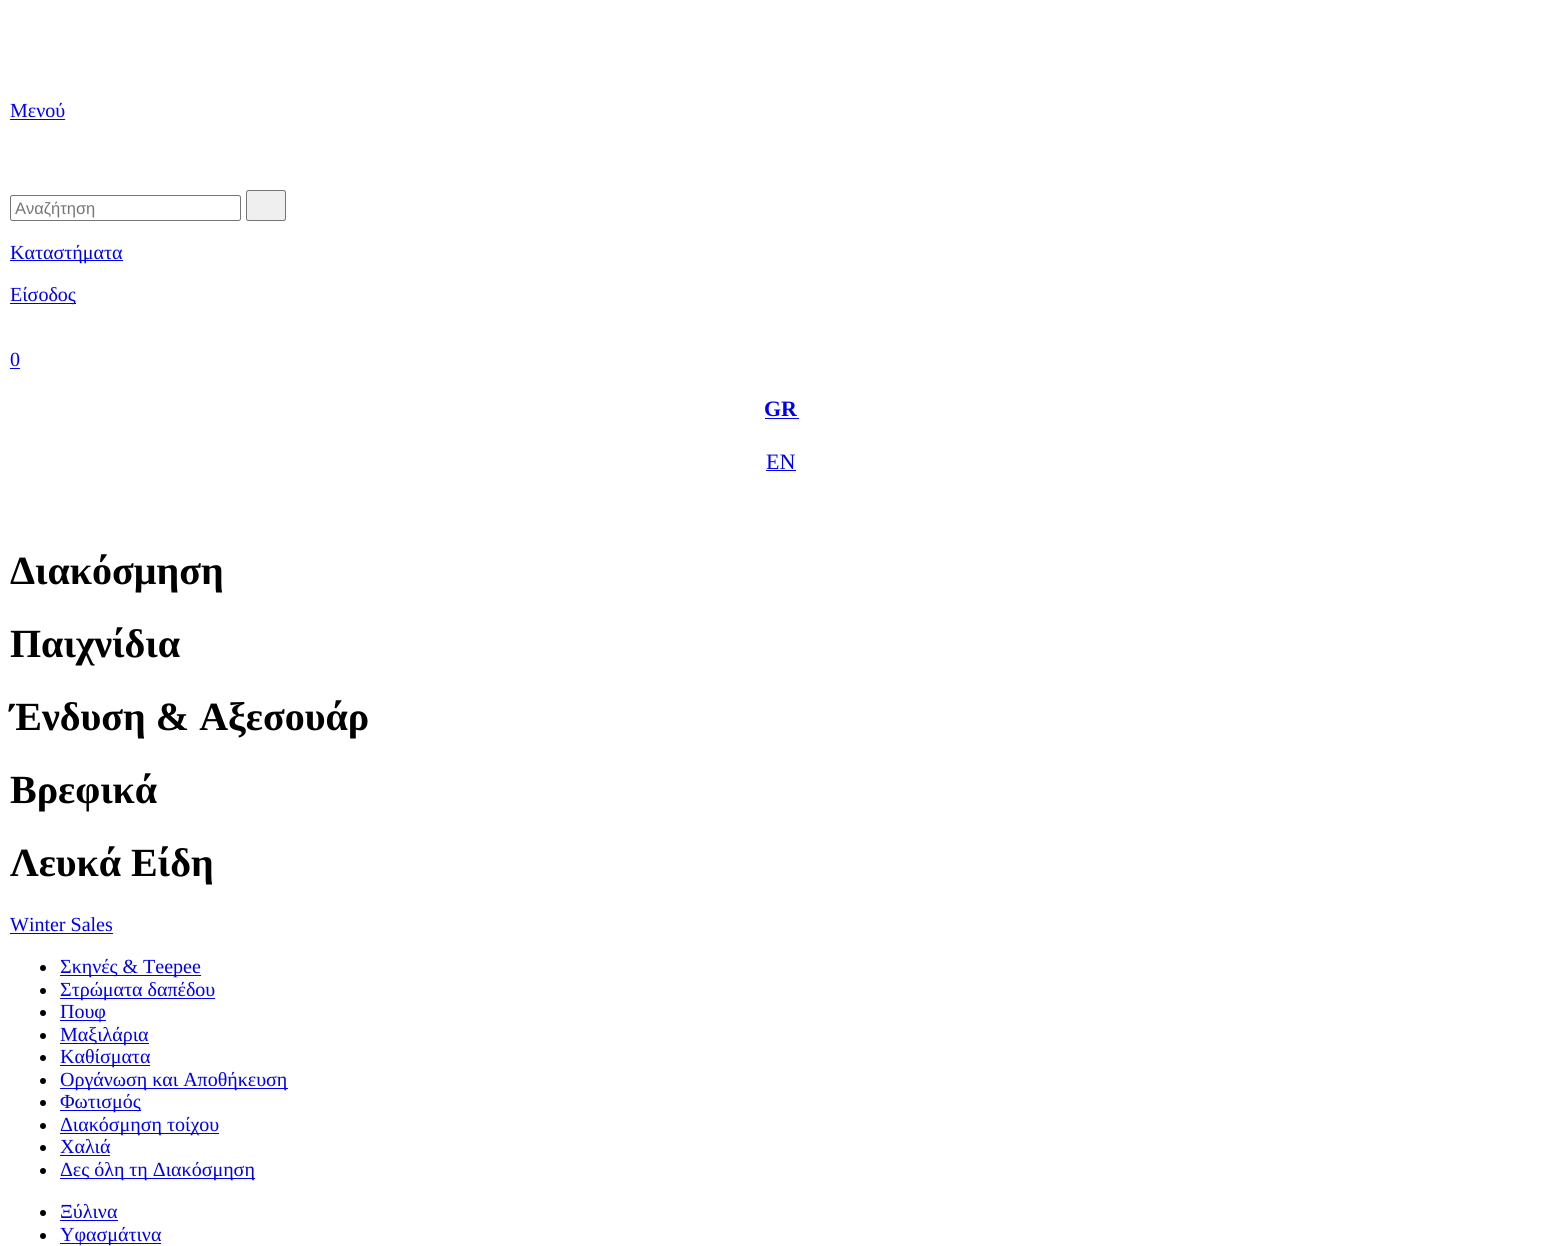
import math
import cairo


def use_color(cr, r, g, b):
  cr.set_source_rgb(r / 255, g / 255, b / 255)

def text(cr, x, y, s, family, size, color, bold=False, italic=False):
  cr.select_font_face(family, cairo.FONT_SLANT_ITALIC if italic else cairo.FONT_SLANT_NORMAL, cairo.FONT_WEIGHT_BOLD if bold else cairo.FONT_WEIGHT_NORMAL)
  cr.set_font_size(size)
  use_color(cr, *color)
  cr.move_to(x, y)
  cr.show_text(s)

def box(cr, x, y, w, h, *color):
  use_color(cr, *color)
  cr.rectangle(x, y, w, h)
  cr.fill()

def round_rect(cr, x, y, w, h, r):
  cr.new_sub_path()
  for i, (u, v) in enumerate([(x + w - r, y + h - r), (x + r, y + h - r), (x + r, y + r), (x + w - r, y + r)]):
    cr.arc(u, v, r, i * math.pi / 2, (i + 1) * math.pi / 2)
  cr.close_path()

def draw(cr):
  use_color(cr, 255, 255, 255)
  cr.paint()
  box(cr, 10, 119, 55, 1, 0, 0, 238)
  round_rect(cr, 10.5, 195.5, 230, 25, 2)
  use_color(cr, 118, 118, 118)
  cr.set_line_width(1)
  cr.stroke()
  use_color(cr, 239, 239, 239)
  round_rect(cr, 246.5, 190.5, 39, 30, 2)
  cr.fill_preserve()
  use_color(cr, 118, 118, 118)
  cr.stroke()
  box(cr, 10, 260, 113, 1, 0, 0, 238)
  box(cr, 10, 303, 66, 1, 0, 0, 238)
  box(cr, 10, 368, 10, 1, 0, 0, 238)
  box(cr, 765, 418, 34, 1, 0, 0, 238)
  box(cr, 766, 470, 30, 1, 0, 0, 238)
  box(cr, 10, 933, 103, 1, 0, 0, 238)
  use_color(cr, 0, 0, 0)
  cr.arc(43, 968, 3, 0, 2 * math.pi)
  cr.fill()
  box(cr, 60, 975, 141, 1, 0, 0, 238)
  use_color(cr, 0, 0, 0)
  cr.arc(43, 991, 3, 0, 2 * math.pi)
  cr.fill()
  box(cr, 60, 998, 155, 1, 0, 0, 238)
  use_color(cr, 0, 0, 0)
  cr.arc(43, 1013, 3, 0, 2 * math.pi)
  cr.fill()
  box(cr, 60, 1020, 46, 1, 0, 0, 238)
  use_color(cr, 0, 0, 0)
  cr.arc(43, 1036, 3, 0, 2 * math.pi)
  cr.fill()
  box(cr, 60, 1043, 89, 1, 0, 0, 238)
  use_color(cr, 0, 0, 0)
  cr.arc(43, 1058, 3, 0, 2 * math.pi)
  cr.fill()
  box(cr, 60, 1065, 90, 1, 0, 0, 238)
  use_color(cr, 0, 0, 0)
  cr.arc(43, 1081, 3, 0, 2 * math.pi)
  cr.fill()
  box(cr, 60, 1088, 228, 1, 0, 0, 238)
  use_color(cr, 0, 0, 0)
  cr.arc(43, 1103, 3, 0, 2 * math.pi)
  cr.fill()
  box(cr, 60, 1110, 81, 1, 0, 0, 238)
  use_color(cr, 0, 0, 0)
  cr.arc(43, 1126, 3, 0, 2 * math.pi)
  cr.fill()
  box(cr, 60, 1133, 159, 1, 0, 0, 238)
  use_color(cr, 0, 0, 0)
  cr.arc(43, 1148, 3, 0, 2 * math.pi)
  cr.fill()
  box(cr, 60, 1155, 50, 1, 0, 0, 238)
  use_color(cr, 0, 0, 0)
  cr.arc(43, 1171, 3, 0, 2 * math.pi)
  cr.fill()
  box(cr, 60, 1178, 195, 1, 0, 0, 238)
  use_color(cr, 0, 0, 0)
  cr.arc(43, 1213, 3, 0, 2 * math.pi)
  cr.fill()
  box(cr, 60, 1220, 58, 1, 0, 0, 238)
  use_color(cr, 0, 0, 0)
  cr.arc(43, 1236, 3, 0, 2 * math.pi)
  cr.fill()
  box(cr, 60, 1243, 101, 1, 0, 0, 238)
  text(cr, 10, 117, "Μενού", "Liberation Serif", 20, (0, 0, 238))
  text(cr, 15, 214, "Αναζήτηση", "Liberation Sans", 16.5, (117, 117, 117))
  text(cr, 10, 259, "Καταστήματα", "Liberation Serif", 20, (0, 0, 238))
  text(cr, 10, 301, "Είσοδος", "Liberation Serif", 20, (0, 0, 238))
  text(cr, 10, 366, "0", "Liberation Serif", 20, (0, 0, 238))
  text(cr, 764, 416, "GR", "Liberation Serif", 22, (0, 0, 238), bold=True)
  text(cr, 766, 469, "EN", "Liberation Serif", 22, (0, 0, 238))
  text(cr, 10, 584, "Διακόσμηση", "Liberation Serif", 40, (0, 0, 0), bold=True)
  text(cr, 10, 657, "Παιχνίδια", "Liberation Serif", 40, (0, 0, 0), bold=True)
  text(cr, 10, 730, "Ένδυση & Αξεσουάρ", "Liberation Serif", 40, (0, 0, 0), bold=True)
  text(cr, 10, 803, "Βρεφικά", "Liberation Serif", 40, (0, 0, 0), bold=True)
  text(cr, 10, 876, "Λευκά Είδη", "Liberation Serif", 40, (0, 0, 0), bold=True)
  text(cr, 10, 931, "Winter Sales", "Liberation Serif", 20, (0, 0, 238))
  text(cr, 60, 973, "Σκηνές & Teepee", "Liberation Serif", 20, (0, 0, 238))
  text(cr, 60, 996, "Στρώματα δαπέδου", "Liberation Serif", 20, (0, 0, 238))
  text(cr, 60, 1018, "Πουφ", "Liberation Serif", 20, (0, 0, 238))
  text(cr, 60, 1041, "Μαξιλάρια", "Liberation Serif", 20, (0, 0, 238))
  text(cr, 60, 1063, "Καθίσματα", "Liberation Serif", 20, (0, 0, 238))
  text(cr, 60, 1086, "Οργάνωση και Αποθήκευση", "Liberation Serif", 20, (0, 0, 238))
  text(cr, 60, 1108, "Φωτισμός", "Liberation Serif", 20, (0, 0, 238))
  text(cr, 60, 1131, "Διακόσμηση τοίχου", "Liberation Serif", 20, (0, 0, 238))
  text(cr, 60, 1153, "Χαλιά", "Liberation Serif", 20, (0, 0, 238))
  text(cr, 60, 1176, "Δες όλη τη Διακόσμηση", "Liberation Serif", 20, (0, 0, 238))
  text(cr, 60, 1218, "Ξύλινα", "Liberation Serif", 20, (0, 0, 238))
  text(cr, 60, 1241, "Υφασμάτινα", "Liberation Serif", 20, (0, 0, 238))


surface = cairo.ImageSurface(cairo.FORMAT_RGB24, 1562, 1246)
cr = cairo.Context(surface)
options = cairo.FontOptions()
options.set_hint_metrics(cairo.HINT_METRICS_OFF)
options.set_hint_style(cairo.HINT_STYLE_NONE)
cr.set_font_options(options)
cr.set_miter_limit(4)
draw(cr)
surface.write_to_png("out.png")
